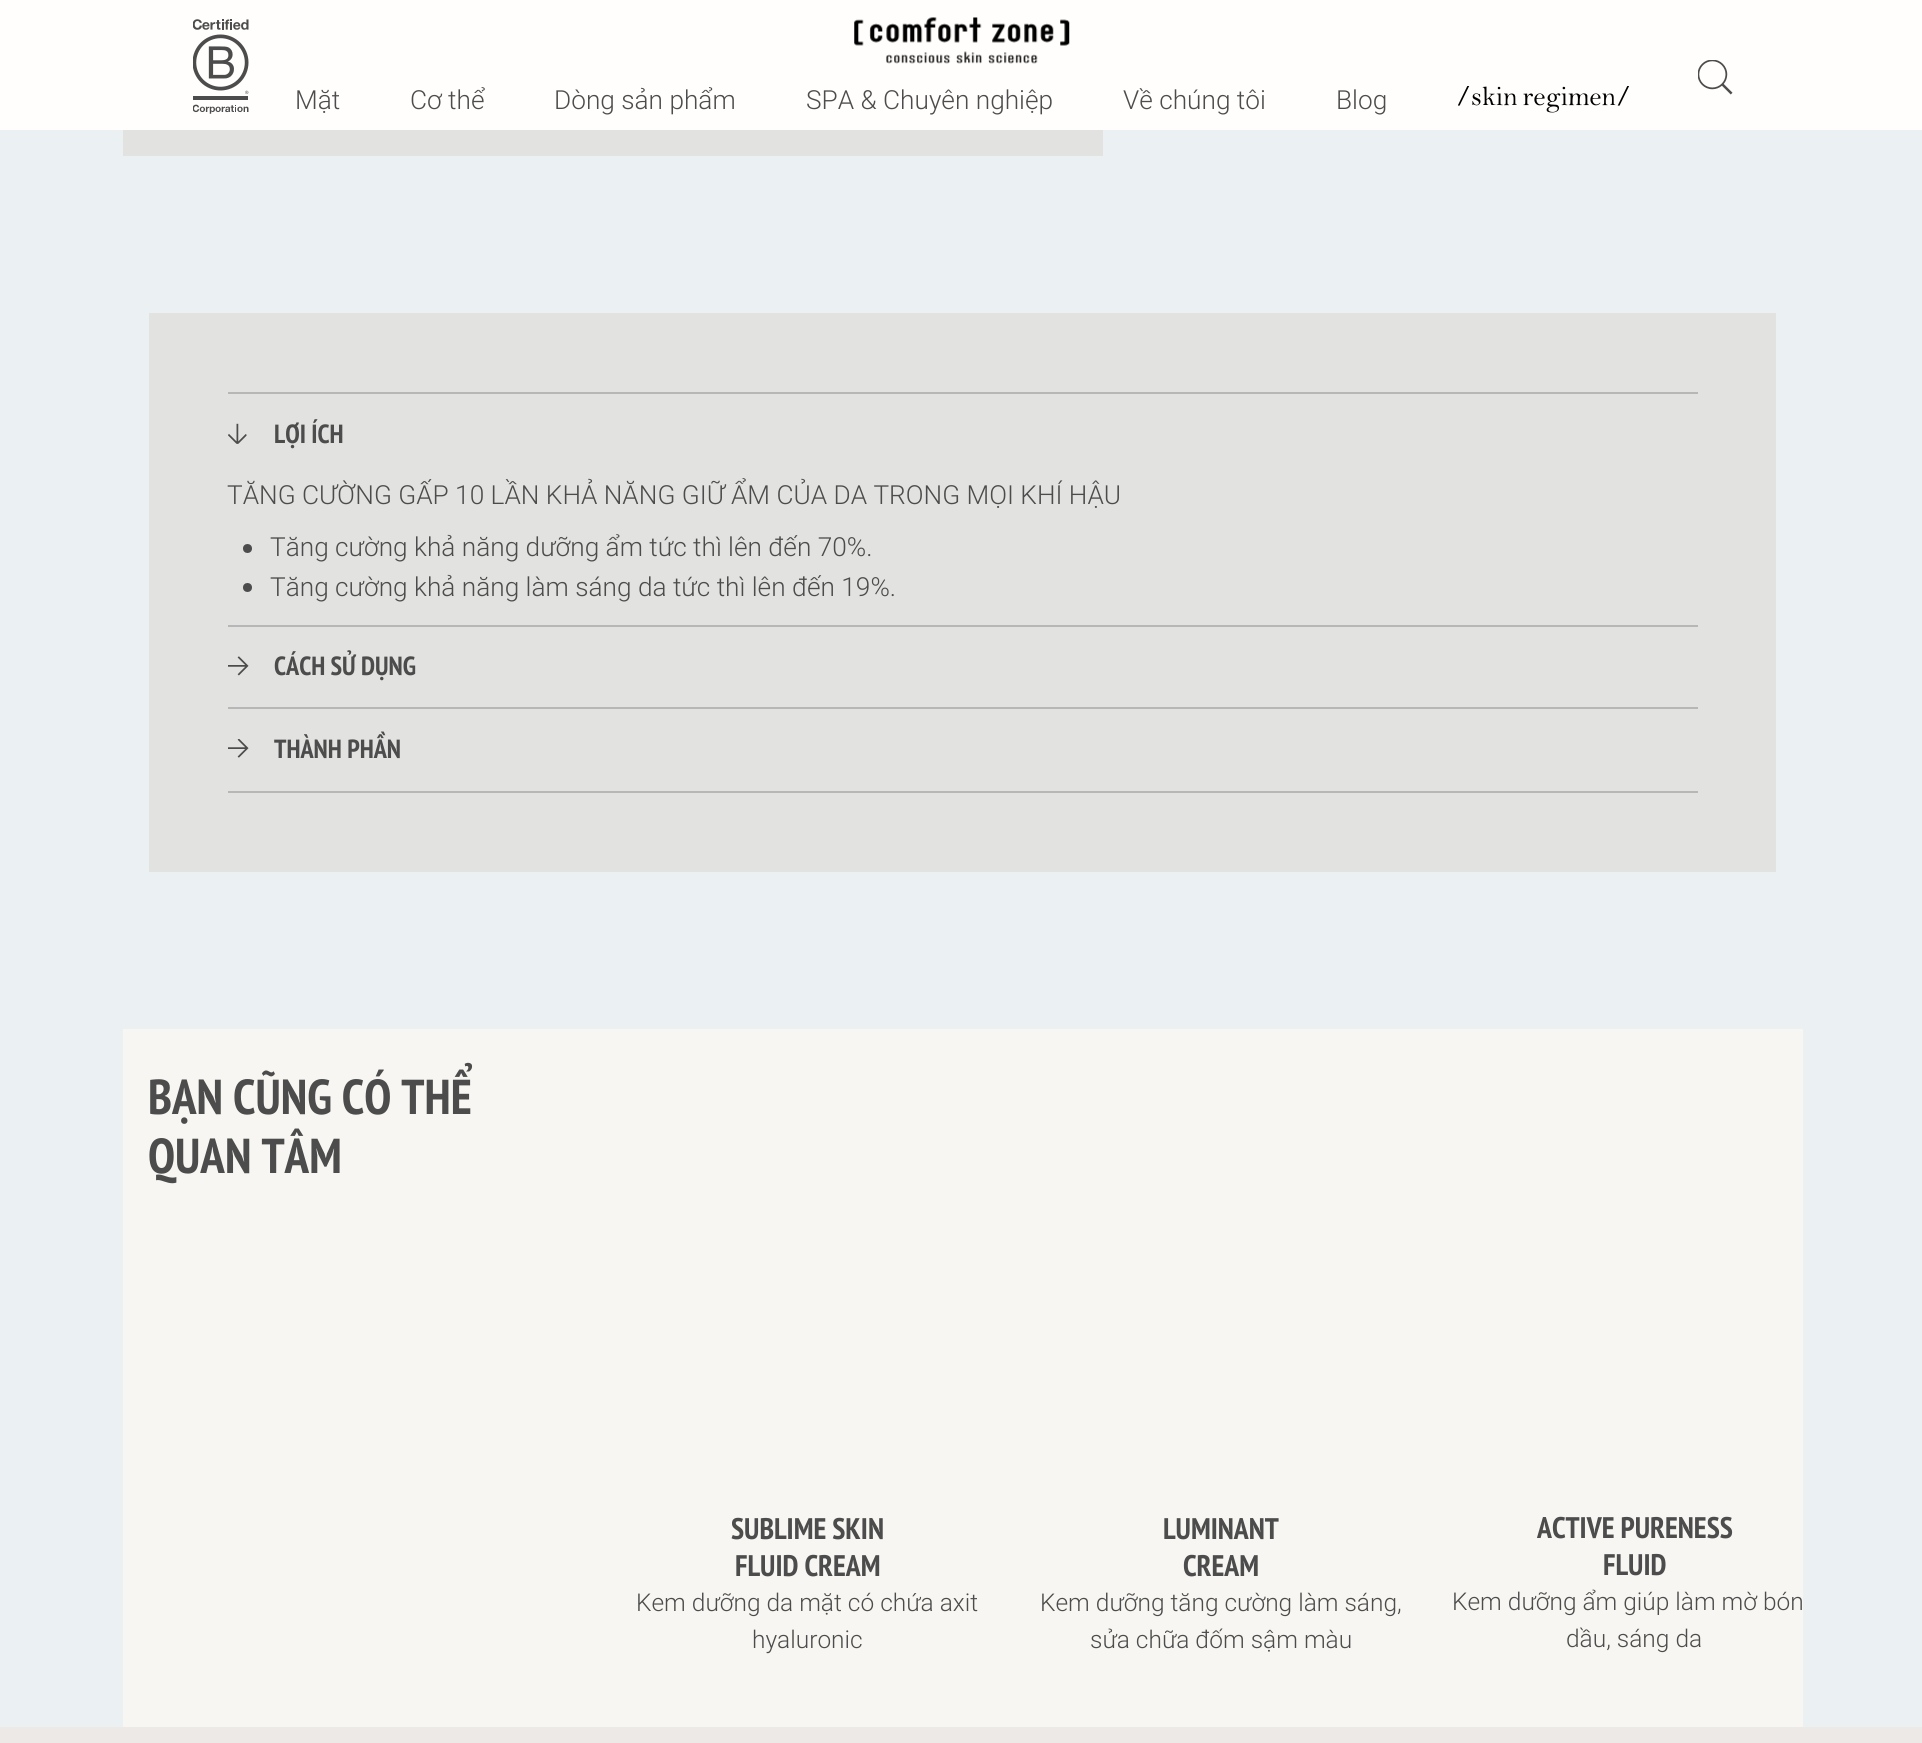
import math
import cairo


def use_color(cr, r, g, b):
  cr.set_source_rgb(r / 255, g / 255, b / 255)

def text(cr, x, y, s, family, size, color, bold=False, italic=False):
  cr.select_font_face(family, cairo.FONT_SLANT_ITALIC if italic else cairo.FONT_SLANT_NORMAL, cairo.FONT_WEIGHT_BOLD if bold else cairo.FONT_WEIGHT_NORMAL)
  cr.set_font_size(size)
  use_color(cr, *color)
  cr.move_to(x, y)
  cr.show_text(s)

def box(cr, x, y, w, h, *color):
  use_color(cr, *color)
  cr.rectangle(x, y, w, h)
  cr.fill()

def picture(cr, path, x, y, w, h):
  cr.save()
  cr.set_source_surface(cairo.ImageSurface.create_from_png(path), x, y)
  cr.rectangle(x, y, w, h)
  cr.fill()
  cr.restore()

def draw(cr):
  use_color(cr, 235, 240, 243)
  cr.paint()
  box(cr, 0, 0, 1922, 130, 255, 254, 252)
  picture(cr, "img_01.png", 193, 19, 56, 95)
  picture(cr, "img_02.png", 854, 17, 216, 47)
  picture(cr, "img_03.png", 1698, 60, 35, 35)
  picture(cr, "img_04.png", 1458, 86, 171, 27)
  box(cr, 123, 130, 980, 26, 226, 226, 224)
  box(cr, 149, 313, 1627, 559, 226, 226, 224)
  box(cr, 228, 392, 1470, 2, 183, 183, 183)
  picture(cr, "img_05.png", 228, 423, 19, 21)
  use_color(cr, 76, 76, 76)
  cr.arc(247.5, 548.5, 4.5, 0, 2 * math.pi)
  cr.fill()
  cr.arc(247.5, 587.5, 4.5, 0, 2 * math.pi)
  cr.fill()
  box(cr, 228, 625, 1470, 2, 183, 183, 183)
  picture(cr, "img_06.png", 228, 656, 21, 20)
  box(cr, 228, 707, 1470, 2, 183, 183, 183)
  box(cr, 228, 791, 1470, 2, 183, 183, 183)
  picture(cr, "img_07.png", 228, 739, 21, 19)
  box(cr, 123, 1029, 1680, 698, 247, 246, 242)
  box(cr, 0, 1727, 1922, 16, 236, 233, 230)
  text(cr, 295, 109, "Mặt", "Roboto Light", 26.25, (76, 76, 76))
  text(cr, 410, 109, "Cơ thể", "Roboto Light", 26.25, (76, 76, 76))
  text(cr, 554, 109, "Dòng sản phẩm", "Roboto Light", 26.25, (76, 76, 76))
  text(cr, 806, 109, "SPA & Chuyên nghiệp", "Roboto Light", 26.25, (76, 76, 76))
  text(cr, 1123, 109, "Về chúng tôi", "Roboto Light", 26.25, (76, 76, 76))
  text(cr, 1336, 109, "Blog", "Roboto Light", 26.25, (76, 76, 76))
  text(cr, 274, 443, "LỢI ÍCH", "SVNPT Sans", 26.25, (76, 76, 76), bold=True)
  text(cr, 227, 504, "TĂNG CƯỜNG GẤP 10 LẦN KHẢ NĂNG GIỮ ẨM CỦA DA TRONG MỌI KHÍ HẬU", "Roboto Light", 26.25, (76, 76, 76))
  text(cr, 270, 556, "Tăng cường khả năng dưỡng ẩm tức thì lên đến 70%.", "Roboto Light", 26.25, (76, 76, 76))
  text(cr, 270, 596, "Tăng cường khả năng làm sáng da tức thì lên đến 19%.", "Roboto Light", 26.25, (76, 76, 76))
  text(cr, 274, 675, "CÁCH SỬ DỤNG", "SVNPT Sans", 26.25, (76, 76, 76), bold=True)
  text(cr, 274, 758, "THÀNH PHẦN", "SVNPT Sans", 26.25, (76, 76, 76), bold=True)
  text(cr, 148, 1114, "BẠN CŨNG CÓ THỂ", "SVNPT Sans", 49, (76, 76, 76), bold=True)
  text(cr, 148, 1173, "QUAN TÂM", "SVNPT Sans", 49, (76, 76, 76), bold=True)
  text(cr, 731, 1539, "SUBLIME SKIN", "SVNPT Sans", 29.75, (76, 76, 76), bold=True)
  text(cr, 735, 1576, "FLUID CREAM", "SVNPT Sans", 29.75, (76, 76, 76), bold=True)
  text(cr, 636, 1611, "Kem dưỡng da mặt có chứa axit", "Roboto Light", 24.5, (76, 76, 76))
  text(cr, 752, 1648, "hyaluronic", "Roboto Light", 24.5, (76, 76, 76))
  text(cr, 1163, 1539, "LUMINANT", "SVNPT Sans", 29.75, (76, 76, 76), bold=True)
  text(cr, 1183, 1576, "CREAM", "SVNPT Sans", 29.75, (76, 76, 76), bold=True)
  text(cr, 1040, 1611, "Kem dưỡng tăng cường làm sáng,", "Roboto Light", 24.5, (76, 76, 76))
  text(cr, 1090, 1648, "sửa chữa đốm sậm màu", "Roboto Light", 24.5, (76, 76, 76))
  text(cr, 1537, 1538, "ACTIVE PURENESS", "SVNPT Sans", 29.75, (76, 76, 76), bold=True)
  text(cr, 1603, 1575, "FLUID", "SVNPT Sans", 29.75, (76, 76, 76), bold=True)
  text(cr, 1452, 1610, "Kem dưỡng ẩm giúp làm mờ bón", "Roboto Light", 24.5, (76, 76, 76))
  text(cr, 1566, 1647, "dầu, sáng da", "Roboto Light", 24.5, (76, 76, 76))


surface = cairo.ImageSurface(cairo.FORMAT_RGB24, 1922, 1743)
cr = cairo.Context(surface)
options = cairo.FontOptions()
options.set_hint_metrics(cairo.HINT_METRICS_OFF)
options.set_hint_style(cairo.HINT_STYLE_NONE)
cr.set_font_options(options)
cr.set_miter_limit(4)
draw(cr)
surface.write_to_png("out.png")
